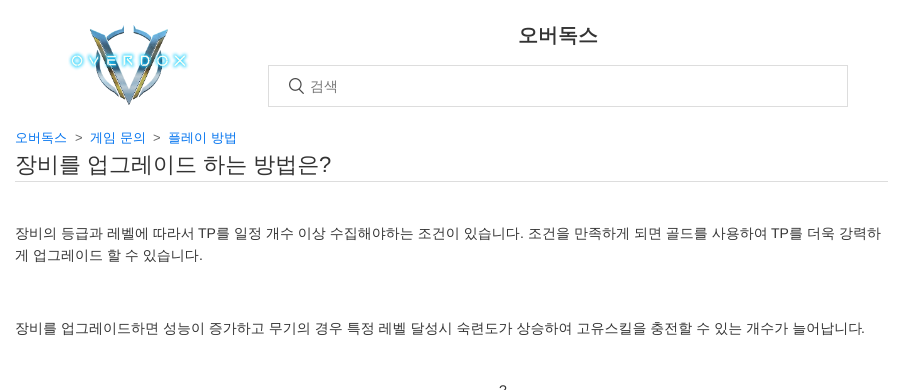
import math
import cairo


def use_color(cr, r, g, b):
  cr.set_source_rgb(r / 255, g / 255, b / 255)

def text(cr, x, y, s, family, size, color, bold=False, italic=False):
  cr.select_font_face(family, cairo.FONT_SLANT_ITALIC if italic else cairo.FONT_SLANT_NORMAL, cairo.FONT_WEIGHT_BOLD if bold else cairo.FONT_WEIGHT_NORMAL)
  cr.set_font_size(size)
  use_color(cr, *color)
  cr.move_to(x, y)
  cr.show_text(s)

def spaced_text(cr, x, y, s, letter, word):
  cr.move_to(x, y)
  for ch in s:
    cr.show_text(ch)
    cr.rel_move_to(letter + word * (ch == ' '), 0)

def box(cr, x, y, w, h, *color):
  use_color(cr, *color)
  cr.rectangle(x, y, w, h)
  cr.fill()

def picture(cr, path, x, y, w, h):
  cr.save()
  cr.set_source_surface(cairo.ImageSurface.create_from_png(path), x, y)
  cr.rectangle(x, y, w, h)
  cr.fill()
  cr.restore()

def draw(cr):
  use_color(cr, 255, 255, 255)
  cr.paint()
  picture(cr, "img_01.png", 68, 25, 121, 80)
  cr.rectangle(268.5, 65.5, 579, 41)
  use_color(cr, 221, 221, 221)
  cr.set_line_width(1)
  cr.stroke()
  picture(cr, "img_02.png", 289, 78, 15, 16)
  box(cr, 15, 181, 873, 1, 221, 221, 221)
  text(cr, 518, 42, "오버독스", "WenQuanYi Zen Hei", 20, (51, 51, 51), bold=True)
  text(cr, 310, 91, "검색", "WenQuanYi Zen Hei Medium", 14, (117, 117, 117))
  text(cr, 15, 142, "오버독스", "WenQuanYi Zen Hei Medium", 13, (0, 114, 239))
  text(cr, 75, 142, ">", "Liberation Sans", 13, (102, 102, 102))
  text(cr, 90, 142, "게임 문의", "WenQuanYi Zen Hei Medium", 13, (0, 114, 239))
  text(cr, 153, 142, ">", "Liberation Sans", 13, (102, 102, 102))
  text(cr, 168, 142, "플레이 방법", "WenQuanYi Zen Hei Medium", 13, (0, 114, 239))
  cr.set_font_size(22)
  use_color(cr, 51, 51, 51)
  spaced_text(cr, 15, 172, "장비를 업그레이드 하는 방법은", 0, -0.5)
  text(cr, 319, 172, "?", "Liberation Sans", 22, (51, 51, 51))
  cr.select_font_face("WenQuanYi Zen Hei Medium")
  cr.set_font_size(14)
  spaced_text(cr, 15, 238, "장비의 등급과 레벨에 따라서", 0, -0.25)
  text(cr, 198, 238, "TP", "Liberation Sans", 14, (51, 51, 51))
  cr.select_font_face("WenQuanYi Zen Hei Medium")
  spaced_text(cr, 216, 238, "를 일정 개수 이상 수집해야하는 조건이 있습니다", 0, -0.25)
  text(cr, 520, 238, ".", "Liberation Sans", 14, (51, 51, 51))
  cr.select_font_face("WenQuanYi Zen Hei Medium")
  spaced_text(cr, 528, 238, "조건을 만족하게 되면 골드를 사용하여", 0, -0.25)
  text(cr, 771, 238, "TP", "Liberation Sans", 14, (51, 51, 51))
  cr.select_font_face("WenQuanYi Zen Hei Medium")
  spaced_text(cr, 789, 238, "를 더욱 강력하", 0, -0.25)
  spaced_text(cr, 15, 260, "게 업그레이드 할 수 있습니다", 0, -0.25)
  text(cr, 199, 260, ".", "Liberation Sans", 14, (51, 51, 51))
  cr.select_font_face("WenQuanYi Zen Hei Medium")
  spaced_text(cr, 15, 333, "장비를 업그레이드하면 성능이 증가하고 무기의 경우 특정 레벨 달성시 숙련도가 상승하여 고유스킬을 충전할 수 있는 개수가 늘어납니다", 0, -0.25)
  text(cr, 861, 333, ".", "Liberation Sans", 14, (51, 51, 51))
  text(cr, 499, 395, "?", "Liberation Sans", 14, (51, 51, 51))


surface = cairo.ImageSurface(cairo.FORMAT_RGB24, 903, 390)
cr = cairo.Context(surface)
options = cairo.FontOptions()
options.set_hint_metrics(cairo.HINT_METRICS_OFF)
options.set_hint_style(cairo.HINT_STYLE_NONE)
cr.set_font_options(options)
cr.set_miter_limit(4)
draw(cr)
surface.write_to_png("out.png")
